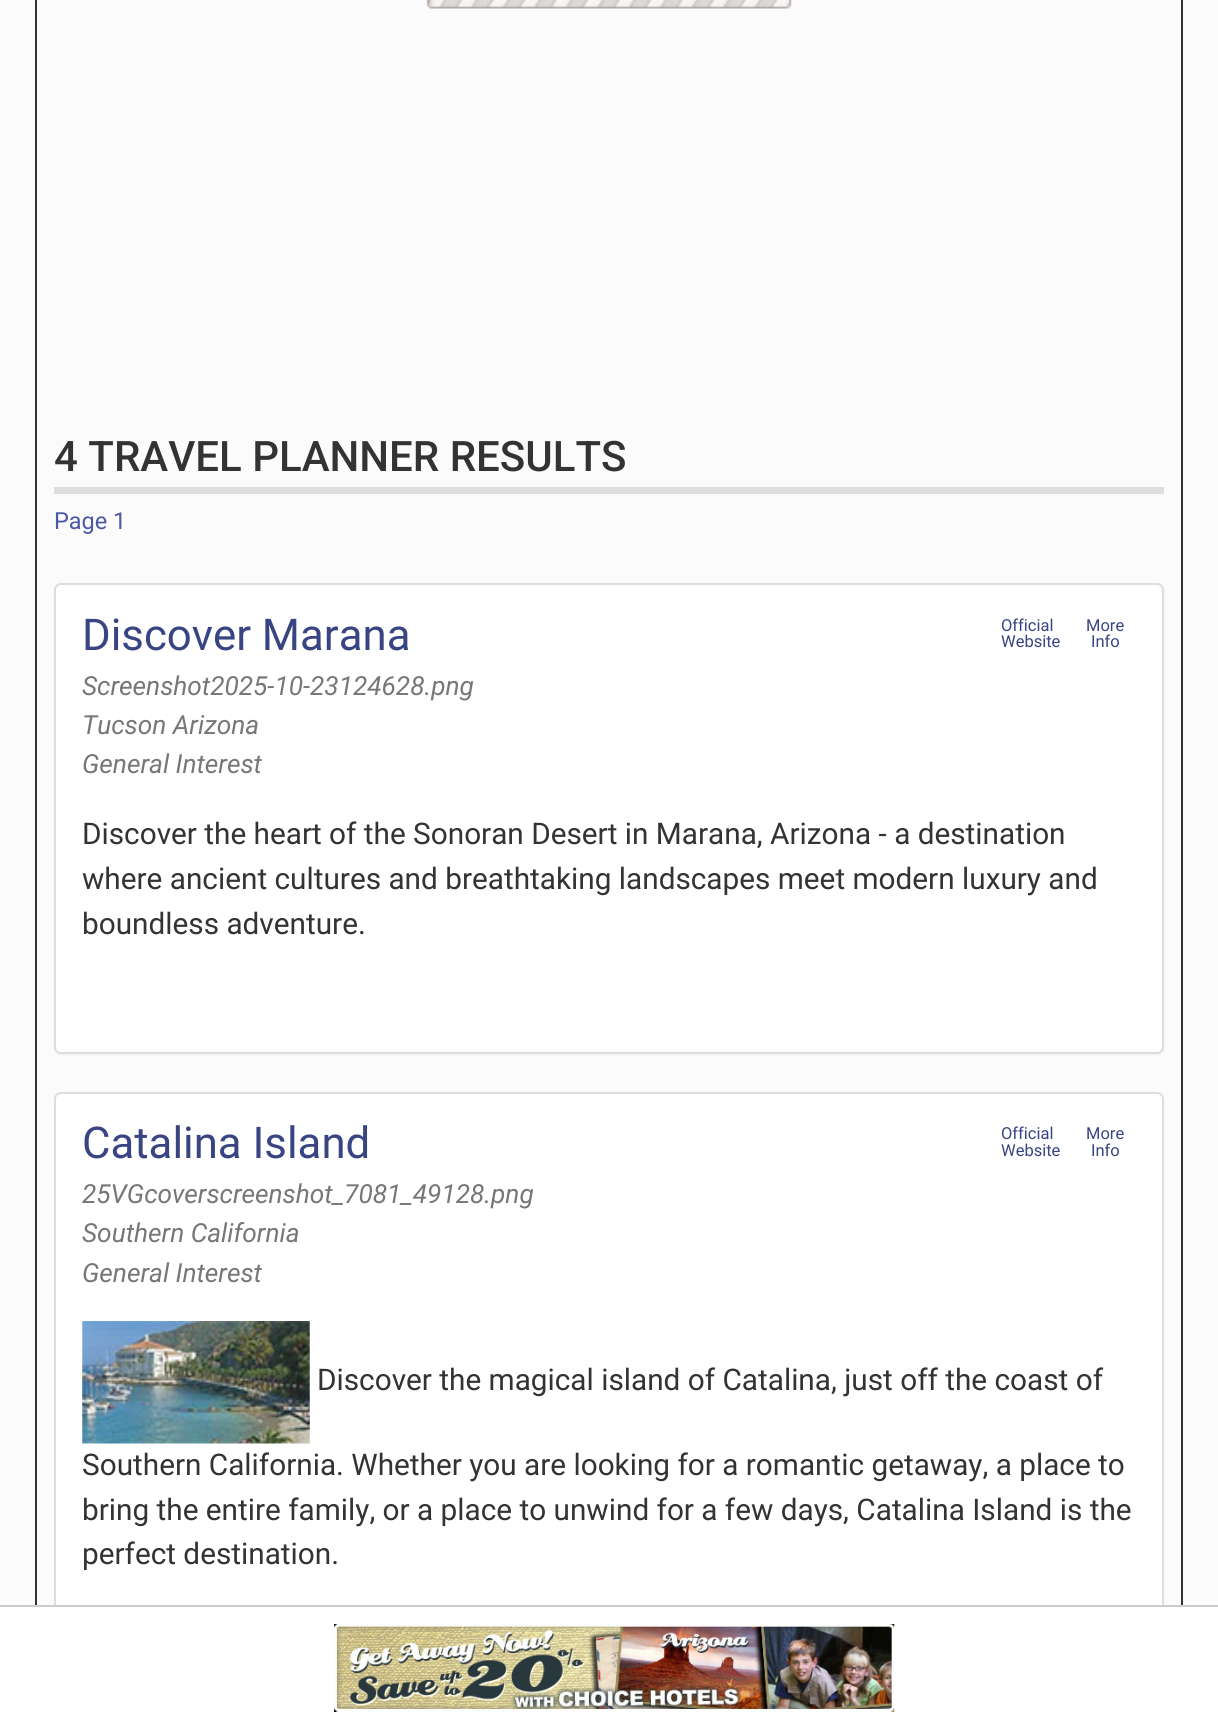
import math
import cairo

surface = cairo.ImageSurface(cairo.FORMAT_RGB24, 1218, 1728)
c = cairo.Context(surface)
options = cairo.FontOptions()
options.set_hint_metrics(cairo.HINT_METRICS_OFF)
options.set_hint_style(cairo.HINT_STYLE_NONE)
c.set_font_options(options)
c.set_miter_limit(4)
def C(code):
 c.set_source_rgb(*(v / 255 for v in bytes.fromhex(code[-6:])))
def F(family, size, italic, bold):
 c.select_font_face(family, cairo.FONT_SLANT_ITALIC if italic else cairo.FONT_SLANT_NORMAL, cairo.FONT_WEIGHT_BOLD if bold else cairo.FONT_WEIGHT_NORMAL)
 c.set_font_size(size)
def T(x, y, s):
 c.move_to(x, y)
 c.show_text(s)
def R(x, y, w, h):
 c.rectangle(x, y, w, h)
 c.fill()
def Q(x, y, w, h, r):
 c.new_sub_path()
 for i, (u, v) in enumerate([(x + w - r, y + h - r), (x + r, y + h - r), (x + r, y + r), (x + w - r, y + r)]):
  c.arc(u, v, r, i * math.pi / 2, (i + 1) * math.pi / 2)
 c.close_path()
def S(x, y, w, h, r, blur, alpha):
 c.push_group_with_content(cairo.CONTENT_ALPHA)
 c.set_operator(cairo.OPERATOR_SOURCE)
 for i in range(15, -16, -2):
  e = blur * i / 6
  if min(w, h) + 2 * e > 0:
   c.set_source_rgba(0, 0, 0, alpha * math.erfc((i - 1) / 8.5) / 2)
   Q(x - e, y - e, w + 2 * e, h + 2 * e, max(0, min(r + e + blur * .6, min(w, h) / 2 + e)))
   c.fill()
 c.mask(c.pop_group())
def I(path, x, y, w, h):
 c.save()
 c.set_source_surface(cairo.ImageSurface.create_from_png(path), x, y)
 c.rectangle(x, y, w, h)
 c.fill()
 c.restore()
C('fbfbfb')
c.paint()
c.rectangle(36,-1,1146,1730)
C('333333')
c.stroke()
I('1.png',426,0,366,9)
C('dededf')
R(54,487,1110,7)
F('Roboto Medium',42,0,0)
C('333333')
T(54,471,'4 TRAVEL PLANNER RESULTS')
F('Roboto',23.5,0,0)
C('4a58a6')
T(54,529,'Page 1')
C('000000')
S(54,585,1110,470,7,1,.05)
C('ffffff')
Q(55,584,1108,469,6)
c.fill_preserve()
C('dddddd')
c.stroke()
F('Roboto',43.75,0,0)
C('394482')
T(82,650,'Discover Marana')
F('Roboto',16.5,0,0)
T(1001,631,'Official')
T(1001,647,'Website')
T(1086,631,'More')
T(1091,647,'Info')
F('Roboto',26.25,1,0)
C('777777')
T(82,695,'Screenshot2025-10-23124628.png')
T(82,734,'Tucson Arizona')
T(82,773,'General Interest')
F('Roboto',29.75,0,0)
C('333333')
T(82,844,'Discover the heart of the Sonoran Desert in Marana, Arizona - a destination')
T(82,889,'where ancient cultures and breathtaking landscapes meet modern luxury and')
T(82,934,'boundless adventure.')
C('ffffff')
Q(55,1093,1108,590,6)
c.fill_preserve()
C('dddddd')
c.stroke()
F('Roboto',43.75,0,0)
C('394482')
T(82,1158,'Catalina Island')
F('Roboto',16.5,0,0)
T(1001,1139,'Official')
T(1001,1156,'Website')
T(1086,1139,'More')
T(1091,1156,'Info')
F('Roboto',26.25,1,0)
C('777777')
T(82,1203,'25VGcoverscreenshot_7081_49128.png')
T(82,1242,'Southern California')
T(82,1282,'General Interest')
I('2.png',82,1321,228,123)
F('Roboto',29.75,0,0)
C('333333')
T(317,1390,'Discover the magical island of Catalina, just off the coast of')
T(82,1475,'Southern California. Whether you are looking for a romantic getaway, a place to')
T(82,1520,'bring the entire family, or a place to unwind for a few days, Catalina Island is the')
T(82,1564,'perfect destination.')
C('ffffff')
R(0,1607,1218,121)
C('cccccc')
R(0,1605,1218,2)
I('3.png',334,1624,561,88)
surface.write_to_png('o.png')
